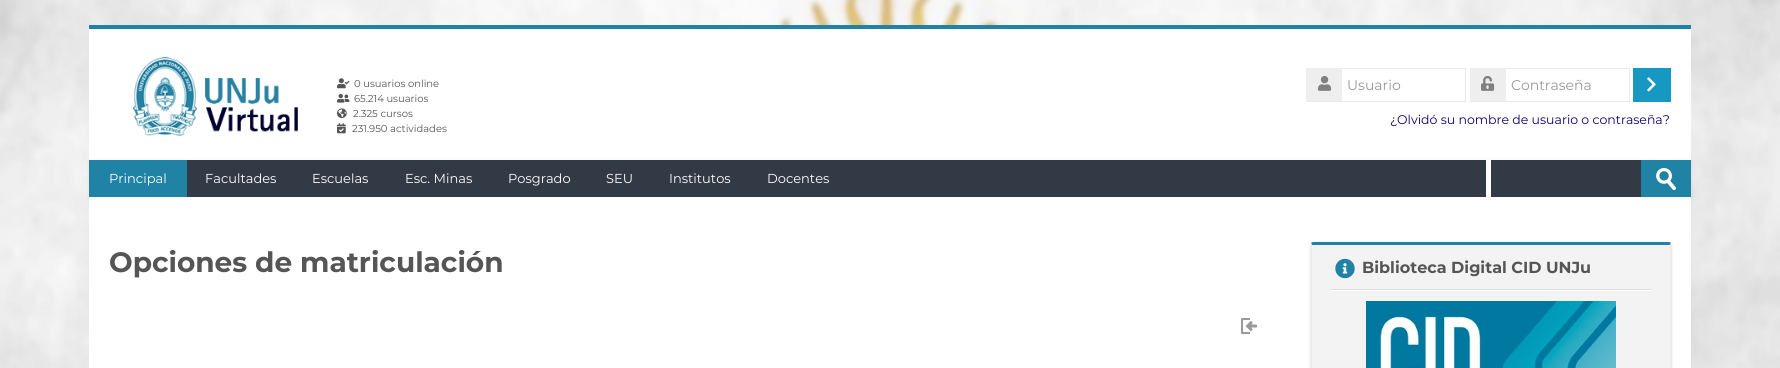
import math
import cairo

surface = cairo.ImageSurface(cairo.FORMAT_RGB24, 1780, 368)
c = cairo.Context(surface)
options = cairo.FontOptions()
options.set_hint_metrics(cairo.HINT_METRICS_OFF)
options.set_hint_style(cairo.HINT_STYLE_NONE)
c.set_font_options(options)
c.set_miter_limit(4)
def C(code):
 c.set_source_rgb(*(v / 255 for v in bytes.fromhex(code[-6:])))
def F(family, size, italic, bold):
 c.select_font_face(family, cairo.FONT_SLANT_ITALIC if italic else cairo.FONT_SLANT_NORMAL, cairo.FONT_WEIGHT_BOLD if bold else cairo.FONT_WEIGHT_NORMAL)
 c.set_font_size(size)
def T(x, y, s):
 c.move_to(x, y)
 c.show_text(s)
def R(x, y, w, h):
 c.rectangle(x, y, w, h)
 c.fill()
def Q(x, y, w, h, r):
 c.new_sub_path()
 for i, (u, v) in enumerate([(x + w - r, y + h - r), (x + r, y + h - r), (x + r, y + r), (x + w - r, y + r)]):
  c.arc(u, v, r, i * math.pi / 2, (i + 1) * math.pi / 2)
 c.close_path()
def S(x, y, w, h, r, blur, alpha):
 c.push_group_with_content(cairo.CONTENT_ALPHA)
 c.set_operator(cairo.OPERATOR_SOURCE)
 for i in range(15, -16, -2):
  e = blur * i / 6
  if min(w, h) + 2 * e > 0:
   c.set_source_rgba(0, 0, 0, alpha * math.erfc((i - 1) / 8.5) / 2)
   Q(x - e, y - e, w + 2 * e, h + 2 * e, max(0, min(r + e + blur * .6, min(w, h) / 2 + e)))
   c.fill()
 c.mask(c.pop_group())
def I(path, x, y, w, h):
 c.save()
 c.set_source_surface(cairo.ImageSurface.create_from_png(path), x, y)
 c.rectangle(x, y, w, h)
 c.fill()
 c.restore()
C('ffffff')
c.paint()
I('1.png',0,0,1780,368)
C('2082a5')
R(89,25,1602,4)
C('ffffff')
R(89,29,1602,131)
I('2.png',133,57,165,79)
I('3.png',337,78,13,11)
F('Montserrat',10,0,0)
C('555555')
T(354,87,'0 usuarios online')
I('4.png',337,93,13,10)
T(354,102,'65.214 usuarios')
I('5.png',337,108,10,11)
T(353,117,'2.325 cursos')
I('6.png',337,123,9,11)
T(352,132,'231.950 actividades')
c.rectangle(1306.5,68.5,159,33)
C('e9e9e9')
c.set_line_width(1)
c.stroke()
C('eeeeee')
R(1306,68,36,33)
I('7.png',1318,76,14,15)
F('Montserrat',14,0,0)
C('999999')
T(1347,90,'Usuario')
c.rectangle(1470.5,68.5,159,33)
C('e9e9e9')
c.stroke()
C('eeeeee')
R(1470,68,36,33)
I('8.png',1481,75,14,16)
C('999999')
T(1511,90,'Contraseña')
C('1798c2')
R(1633,68,38,34)
I('9.png',1647,77,9,15)
F('Montserrat',12.5,0,0)
C('0d006e')
T(1390,124,'¿Olvidó su nombre de usuario o contraseña?')
C('000000')
S(89,161,1602,37,0,2,.07)
C('323a45')
R(187,160,1454,37)
C('2082a5')
R(89,160,98,37)
F('Montserrat',13,0,0)
C('ffffff')
T(109,183,'Principal')
T(205,183,'Facultades')
T(312,183,'Escuelas')
T(405,183,'Esc. Minas')
T(508,183,'Posgrado')
T(606,183,'SEU')
T(669,183,'Institutos')
T(767,183,'Docentes')
R(1486,160,5,37)
C('2082a5')
R(1641,160,50,37)
I('10.png',1656,168,20,22)
C('ffffff')
R(89,197,1602,171)
F('Montserrat',28,0,1)
C('555555')
T(109,272,'Opciones de matriculación')
I('11.png',1241,318,16,16)
C('000000')
S(1311,243,360,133,3,1.5,.2)
C('f3f3f3')
c.new_path()
c.move_to(1314,245)
c.line_to(1670,245)
c.line_to(1670,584)
c.curve_to(1670,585,1669,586,1668,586)
c.line_to(1314,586)
c.curve_to(1313,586,1312,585,1312,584)
c.line_to(1312,245)
c.close_path()
c.fill()
C('2082a5')
c.new_path()
c.move_to(1314,242)
c.curve_to(1313,242,1312,242,1311,243)
c.line_to(1312,245)
c.line_to(1670,245)
c.line_to(1671,243)
c.curve_to(1670,242,1669,242,1668,242)
c.close_path()
c.fill()
C('ebebeb')
c.new_path()
c.move_to(1671,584)
c.line_to(1671,245)
c.line_to(1671,243)
c.line_to(1670,245)
c.line_to(1670,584)
c.line_to(1669,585)
c.line_to(1670,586)
c.close_path()
c.fill()
c.new_path()
c.move_to(1311,245)
c.line_to(1311,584)
c.line_to(1312,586)
c.line_to(1313,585)
c.line_to(1312,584)
c.line_to(1312,245)
c.line_to(1311,243)
c.close_path()
c.fill()
I('12.png',1331,289,320,2)
I('13.png',1335,258,20,21)
F('Montserrat',16,0,1)
C('555555')
T(1362,273,'Biblioteca Digital CID UNJu')
I('14.png',1366,301,250,67)
surface.write_to_png('o.png')
